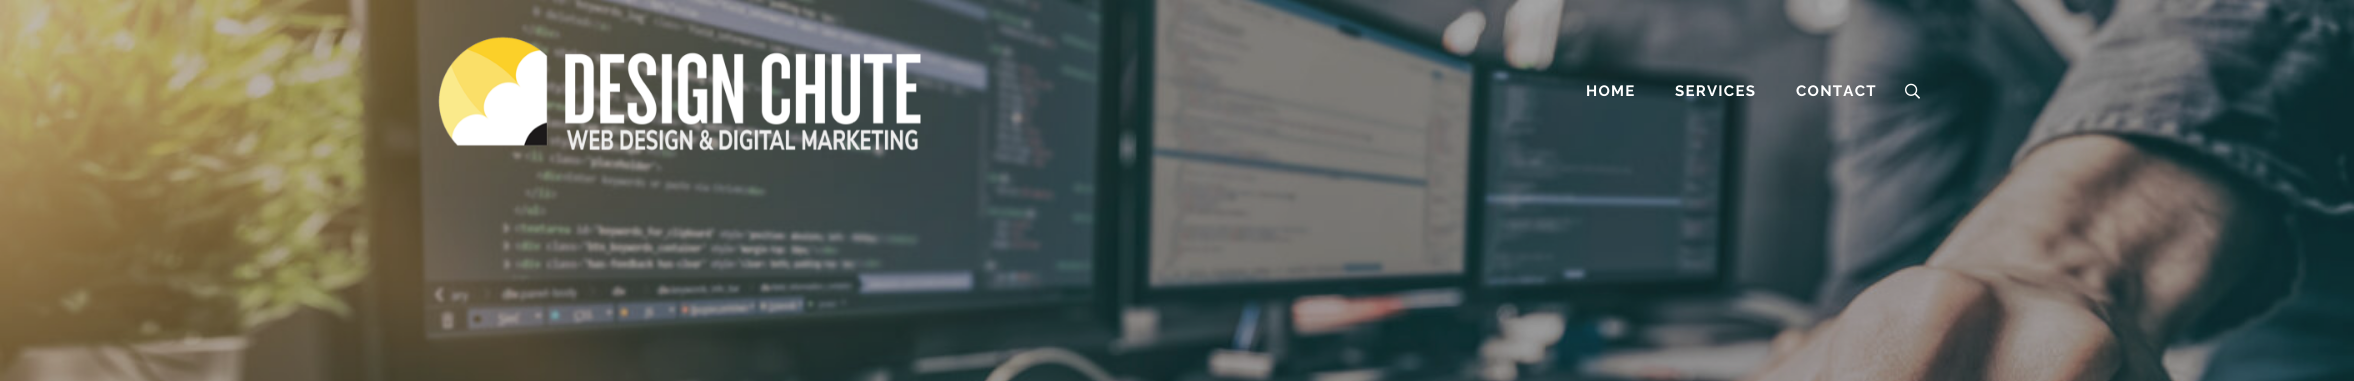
import math
import cairo

surface = cairo.ImageSurface(cairo.FORMAT_RGB24, 2354, 381)
c = cairo.Context(surface)
options = cairo.FontOptions()
options.set_hint_metrics(cairo.HINT_METRICS_OFF)
options.set_hint_style(cairo.HINT_STYLE_NONE)
c.set_font_options(options)
c.set_miter_limit(4)
def C(code):
 c.set_source_rgb(*(v / 255 for v in bytes.fromhex(code[-6:])))
def F(family, size, italic, bold):
 c.select_font_face(family, cairo.FONT_SLANT_ITALIC if italic else cairo.FONT_SLANT_NORMAL, cairo.FONT_WEIGHT_BOLD if bold else cairo.FONT_WEIGHT_NORMAL)
 c.set_font_size(size)
def L(x, y, s, letter, word):
 c.move_to(x, y)
 for ch in s:
  c.show_text(ch)
  c.rel_move_to(letter + word * (ch == ' '), 0)
def I(path, x, y, w, h):
 c.save()
 c.set_source_surface(cairo.ImageSurface.create_from_png(path), x, y)
 c.rectangle(x, y, w, h)
 c.fill()
 c.restore()
C('ffffff')
c.paint()
I('1.png',0,0,2354,381)
I('2.png',438,36,483,115)
F('Raleway',15,0,1)
C('ffffff')
L(1586,96,'HOME',1.25,0)
L(1675,96,'SERVICES',1.25,0)
L(1796,96,'CONTACT',1.25,0)
I('3.png',1905,83,15,16)
surface.write_to_png('o.png')
